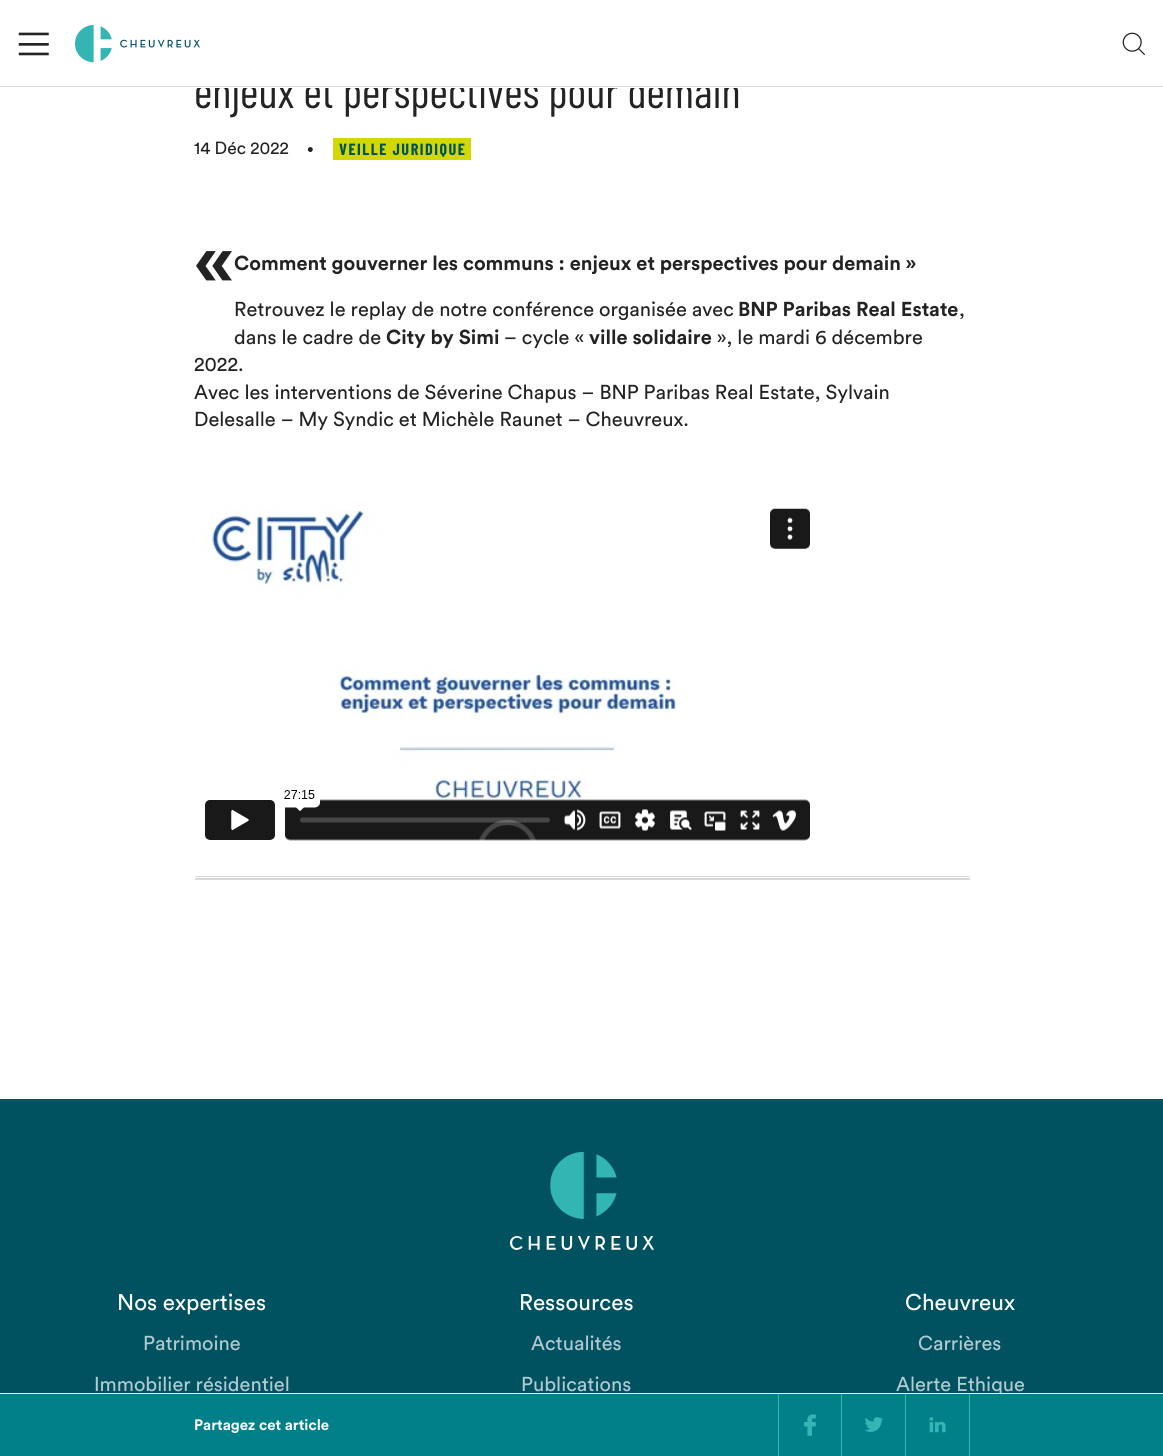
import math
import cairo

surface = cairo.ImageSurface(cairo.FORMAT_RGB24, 1163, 1456)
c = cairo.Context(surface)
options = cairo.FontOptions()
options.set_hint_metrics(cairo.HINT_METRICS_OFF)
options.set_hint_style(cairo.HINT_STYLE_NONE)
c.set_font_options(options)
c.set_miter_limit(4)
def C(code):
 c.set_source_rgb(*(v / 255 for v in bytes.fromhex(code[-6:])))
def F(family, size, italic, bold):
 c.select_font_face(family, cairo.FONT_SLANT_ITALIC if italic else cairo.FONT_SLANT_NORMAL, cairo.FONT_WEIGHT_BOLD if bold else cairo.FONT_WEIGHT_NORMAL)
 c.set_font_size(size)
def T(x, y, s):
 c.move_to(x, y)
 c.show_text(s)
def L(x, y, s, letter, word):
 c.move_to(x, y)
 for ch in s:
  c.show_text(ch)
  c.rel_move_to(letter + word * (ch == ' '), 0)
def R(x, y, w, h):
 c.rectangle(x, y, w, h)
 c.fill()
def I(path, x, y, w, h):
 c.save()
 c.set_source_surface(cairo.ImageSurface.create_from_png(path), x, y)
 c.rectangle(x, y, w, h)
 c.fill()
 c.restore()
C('ffffff')
c.paint()
F('Barlow Condensed',45,0,0)
C('232323')
T(194,108,'enjeux et perspectives pour demain')
C('ffffff')
R(197,76,541,12)
C('d9d9d9')
R(0,86,1163,1)
I('1.png',18,32,31,24)
I('2.png',75,25,125,38)
I('3.png',1122,32,23,23)
F('Circular',17.5,0,0)
C('232323')
T(194,154,'14 Déc 2022')
F('Circular',12,0,0)
T(307,153,'•')
C('d3d801')
R(333,138,138,22)
F('Barlow Condensed',16.25,0,1)
C('005261')
L(339,155,'VEILLE JURIDIQUE',1.5,0)
F('Circular',75,0,1)
C('232323')
T(194,288,'«')
F('Circular',20,0,1)
T(234,270,'Comment gouverner les communs : enjeux et perspectives pour demain »')
F('Circular',20,0,0)
T(234,316,'Retrouvez le replay de notre conférence organisée avec')
F('Circular',20,0,1)
T(738,316,'BNP Paribas Real Estate')
F('Circular',20,0,0)
T(959,316,',')
T(234,344,'dans le cadre de')
F('Circular',20,0,1)
T(386,344,'City by Simi')
F('Circular',20,0,0)
T(504,344,'– cycle «')
F('Circular',20,0,1)
T(589,344,'ville solidaire')
F('Circular',20,0,0)
T(717,344,'», le mardi 6 décembre')
T(194,371,'2022.')
T(194,399,'Avec les interventions de Séverine Chapus – BNP Paribas Real Estate, Sylvain')
T(194,426,'Delesalle – My Syndic et Michèle Raunet – Cheuvreux.')
I('4.png',205,508,605,333)
C('d9d9d9')
R(195,876,775,1)
R(195,878,775,2)
C('005261')
R(0,1099,1163,294)
I('5.png',510,1152,144,98)
F('Circular',22.5,0,0)
C('ffffff')
T(117,1310,'Nos expertises')
F('Circular',20,0,0)
C('b3cbd0')
T(143,1350,'Patrimoine')
T(94,1391,'Immobilier résidentiel')
F('Circular',22.5,0,0)
C('ffffff')
T(519,1310,'Ressources')
F('Circular',20,0,0)
C('b3cbd0')
T(531,1350,'Actualités')
T(521,1391,'Publications')
F('Circular',22.5,0,0)
C('ffffff')
T(905,1310,'Cheuvreux')
F('Circular',20,0,0)
C('b3cbd0')
T(918,1350,'Carrières')
T(896,1391,'Alerte Ethique')
C('01808a')
R(0,1394,1163,62)
C('ffffff')
R(999,1393,2,1)
F('Circular',15,0,1)
T(194,1430,'Partagez cet article')
C('35b5b4')
R(778,1394,1,62)
I('6.png',804,1414,12,22)
R(841,1394,1,62)
I('7.png',865,1417,18,15)
R(969,1394,1,62)
R(905,1394,1,62)
I('8.png',929,1417,17,16)
surface.write_to_png('o.png')
